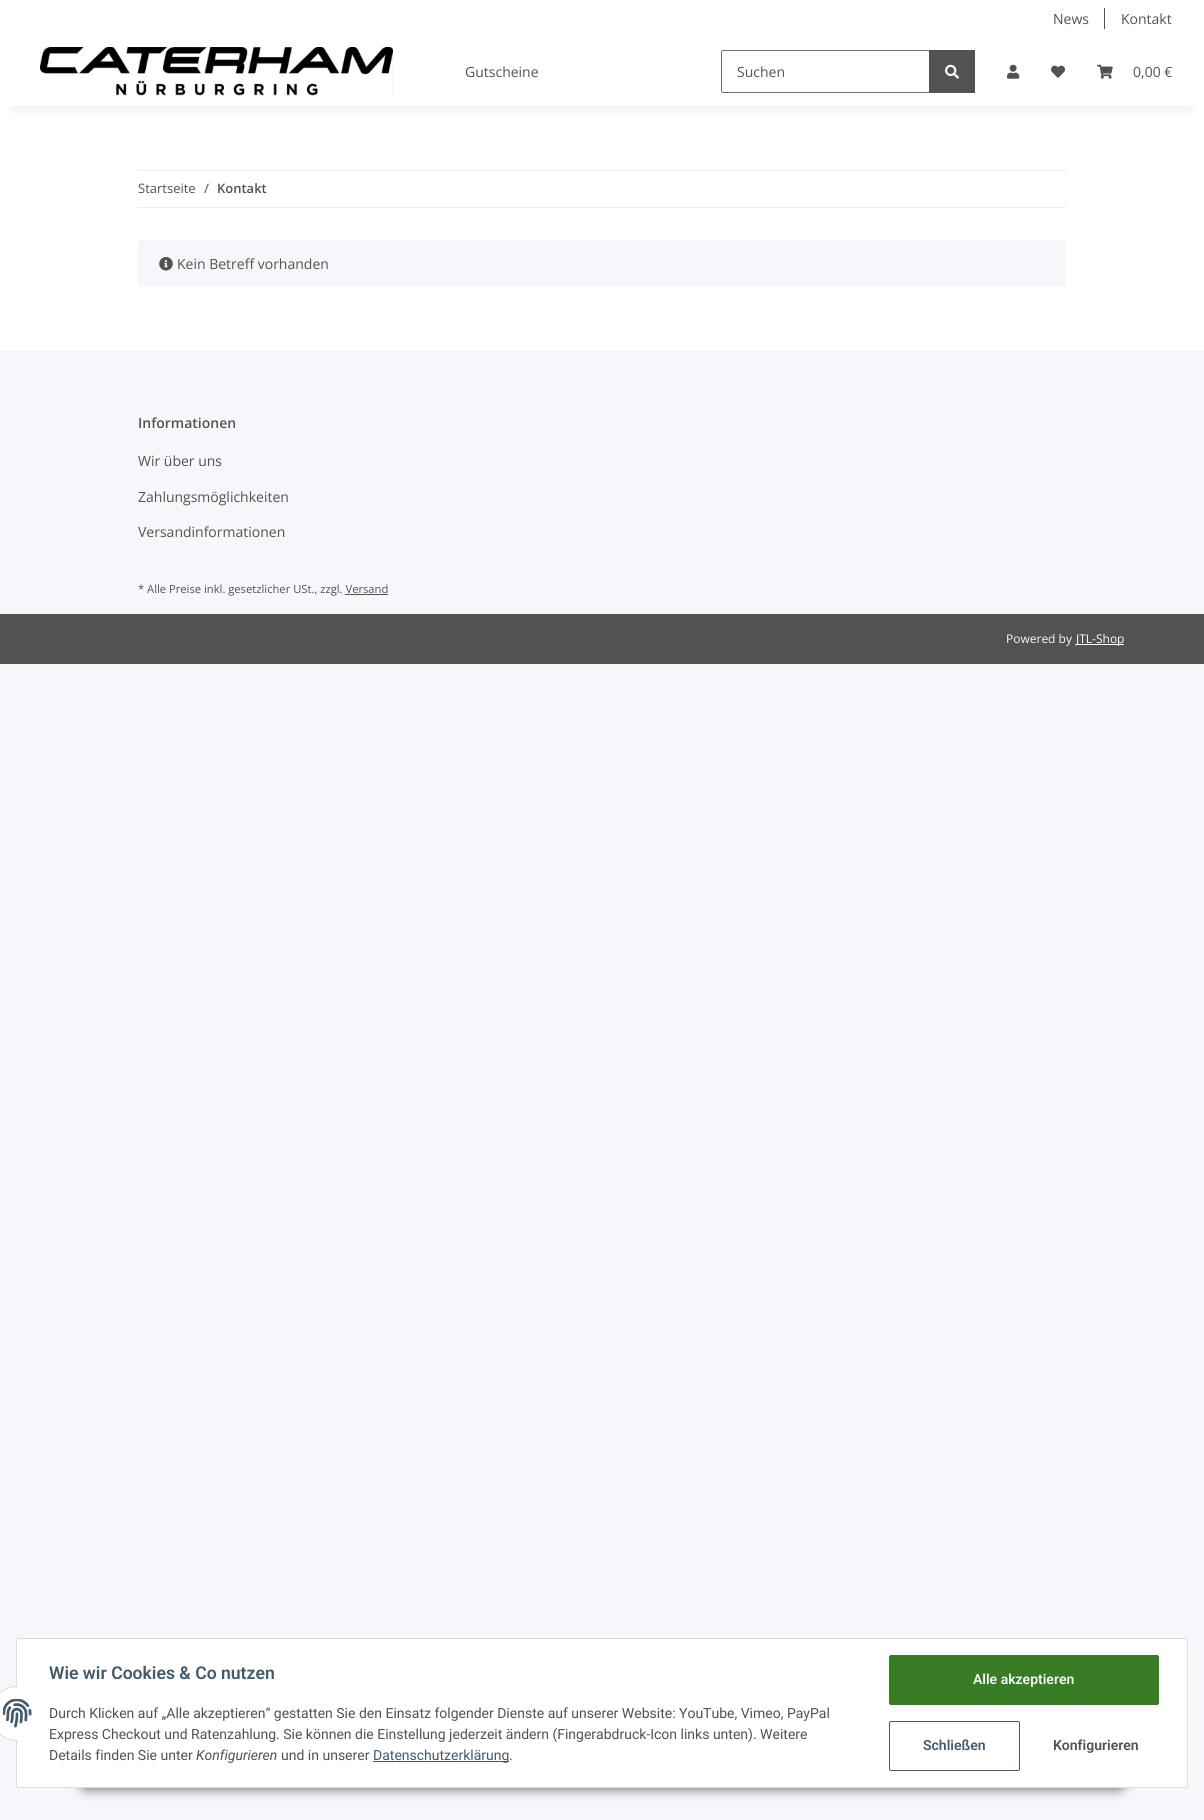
import math
import cairo

surface = cairo.ImageSurface(cairo.FORMAT_RGB24, 1204, 1820)
c = cairo.Context(surface)
options = cairo.FontOptions()
options.set_hint_metrics(cairo.HINT_METRICS_OFF)
options.set_hint_style(cairo.HINT_STYLE_NONE)
c.set_font_options(options)
c.set_miter_limit(4)
def C(code):
 c.set_source_rgb(*(v / 255 for v in bytes.fromhex(code[-6:])))
def F(family, size, italic, bold):
 c.select_font_face(family, cairo.FONT_SLANT_ITALIC if italic else cairo.FONT_SLANT_NORMAL, cairo.FONT_WEIGHT_BOLD if bold else cairo.FONT_WEIGHT_NORMAL)
 c.set_font_size(size)
def T(x, y, s):
 c.move_to(x, y)
 c.show_text(s)
def R(x, y, w, h):
 c.rectangle(x, y, w, h)
 c.fill()
def Q(x, y, w, h, r):
 c.new_sub_path()
 for i, (u, v) in enumerate([(x + w - r, y + h - r), (x + r, y + h - r), (x + r, y + r), (x + w - r, y + r)]):
  c.arc(u, v, r, i * math.pi / 2, (i + 1) * math.pi / 2)
 c.close_path()
def S(x, y, w, h, r, blur, alpha):
 c.push_group_with_content(cairo.CONTENT_ALPHA)
 c.set_operator(cairo.OPERATOR_SOURCE)
 for i in range(15, -16, -2):
  e = blur * i / 6
  if min(w, h) + 2 * e > 0:
   c.set_source_rgba(0, 0, 0, alpha * math.erfc((i - 1) / 8.5) / 2)
   Q(x - e, y - e, w + 2 * e, h + 2 * e, max(0, min(r + e + blur * .6, min(w, h) / 2 + e)))
   c.fill()
 c.mask(c.pop_group())
def I(path, x, y, w, h):
 c.save()
 c.set_source_surface(cairo.ImageSurface.create_from_png(path), x, y)
 c.rectangle(x, y, w, h)
 c.fill()
 c.restore()
C('f5f7fa')
c.paint()
C('ffffff')
R(0,106,1204,245)
C('000000')
S(12,65,1180,45,0,4.5,.06)
C('ffffff')
R(0,0,1204,106)
F('Open Sans',14,0,0)
C('525252')
T(1053,24,'News')
R(1104,8,1,21)
T(1121,24,'Kontakt')
I('1.png',40,47,353,49)
T(465,77,'Gutscheine')
Q(721.5,50.5,208,42,1.5)
C('707070')
c.set_line_width(1)
c.stroke()
C('525252')
T(737,77,'Suchen')
R(929,50,46,43)
I('2.png',945,64,14,15)
I('3.png',1007,64,13,15)
I('4.png',1051,65,14,13)
I('5.png',1097,64,16,15)
T(1133,77,'0,00 €')
C('ebebeb')
R(138,170,928,1)
R(138,207,928,1)
F('Open Sans',13,0,0)
C('525252')
T(138,193,'Startseite')
F('Open Sans SemiBold',13,0,0)
C('707070')
T(204,193,'/')
C('525252')
T(217,193,'Kontakt')
C('f5f7fa')
Q(138,240,928,47,2)
c.fill()
I('6.png',159,257,14,14)
F('Open Sans',14,0,0)
C('525252')
T(177,269,'Kein Betreff vorhanden')
F('Open Sans SemiBold',14,0,0)
T(138,428,'Informationen')
F('Open Sans',14,0,0)
T(138,466,'Wir über uns')
T(138,502,'Zahlungsmöglichkeiten')
T(138,537,'Versandinformationen')
F('Open Sans',11.2,0,0)
T(138,593,'* Alle Preise inkl. gesetzlicher USt., zzgl. Versand')
R(345,594,43,1)
R(0,614,1204,50)
F('Open Sans',12,0,0)
C('f5f7fa')
T(1006,643,'Powered by')
C('ffffff')
R(1076,644,48,1)
T(1076,643,'JTL-Shop')
C('000000')
S(76,1759,1053,32,16,5,.45)
C('ffffff')
Q(16.5,1638.5,1171,149,1.5)
c.fill_preserve()
C('dddddd')
c.stroke()
C('ffffff')
c.arc(17.5,1713.5,27,0,2 * math.pi)
c.fill_preserve()
C('dddddd')
c.stroke()
C('ffffff')
R(18,1686,27,55)
I('7.png',3,1699,29,29)
F('Roboto SemiBold',17.6,0,0)
C('435a6b')
T(49,1679,'Wie wir Cookies & Co nutzen')
F('Roboto',14,0,0)
C('525252')
T(49,1718,'Durch Klicken auf „Alle akzeptieren“ gestatten Sie den Einsatz folgender Dienste auf unserer Website: YouTube, Vimeo, PayPal')
T(49,1739,'Express Checkout und Ratenzahlung. Sie können die Einstellung jederzeit ändern (Fingerabdruck-Icon links unten). Weitere')
T(49,1760,'Details finden Sie unter')
F('Roboto',14,1,0)
T(196,1760,'Konfigurieren')
F('Roboto',14,0,0)
T(281,1760,'und in unserer')
C('435a6b')
R(373,1761,136,1)
T(373,1760,'Datenschutzerklärung')
C('525252')
T(509,1760,'.')
C('397c26')
Q(889.5,1655.5,269,49,1.5)
c.fill_preserve()
c.stroke()
F('Roboto SemiBold',14,0,0)
C('f5f7fa')
T(973,1684,'Alle akzeptieren')
Q(889.5,1721.5,130,49,1.5)
C('435a6b')
c.stroke()
T(923,1750,'Schließen')
C('525252')
T(1053,1750,'Konfigurieren')
surface.write_to_png('o.png')
